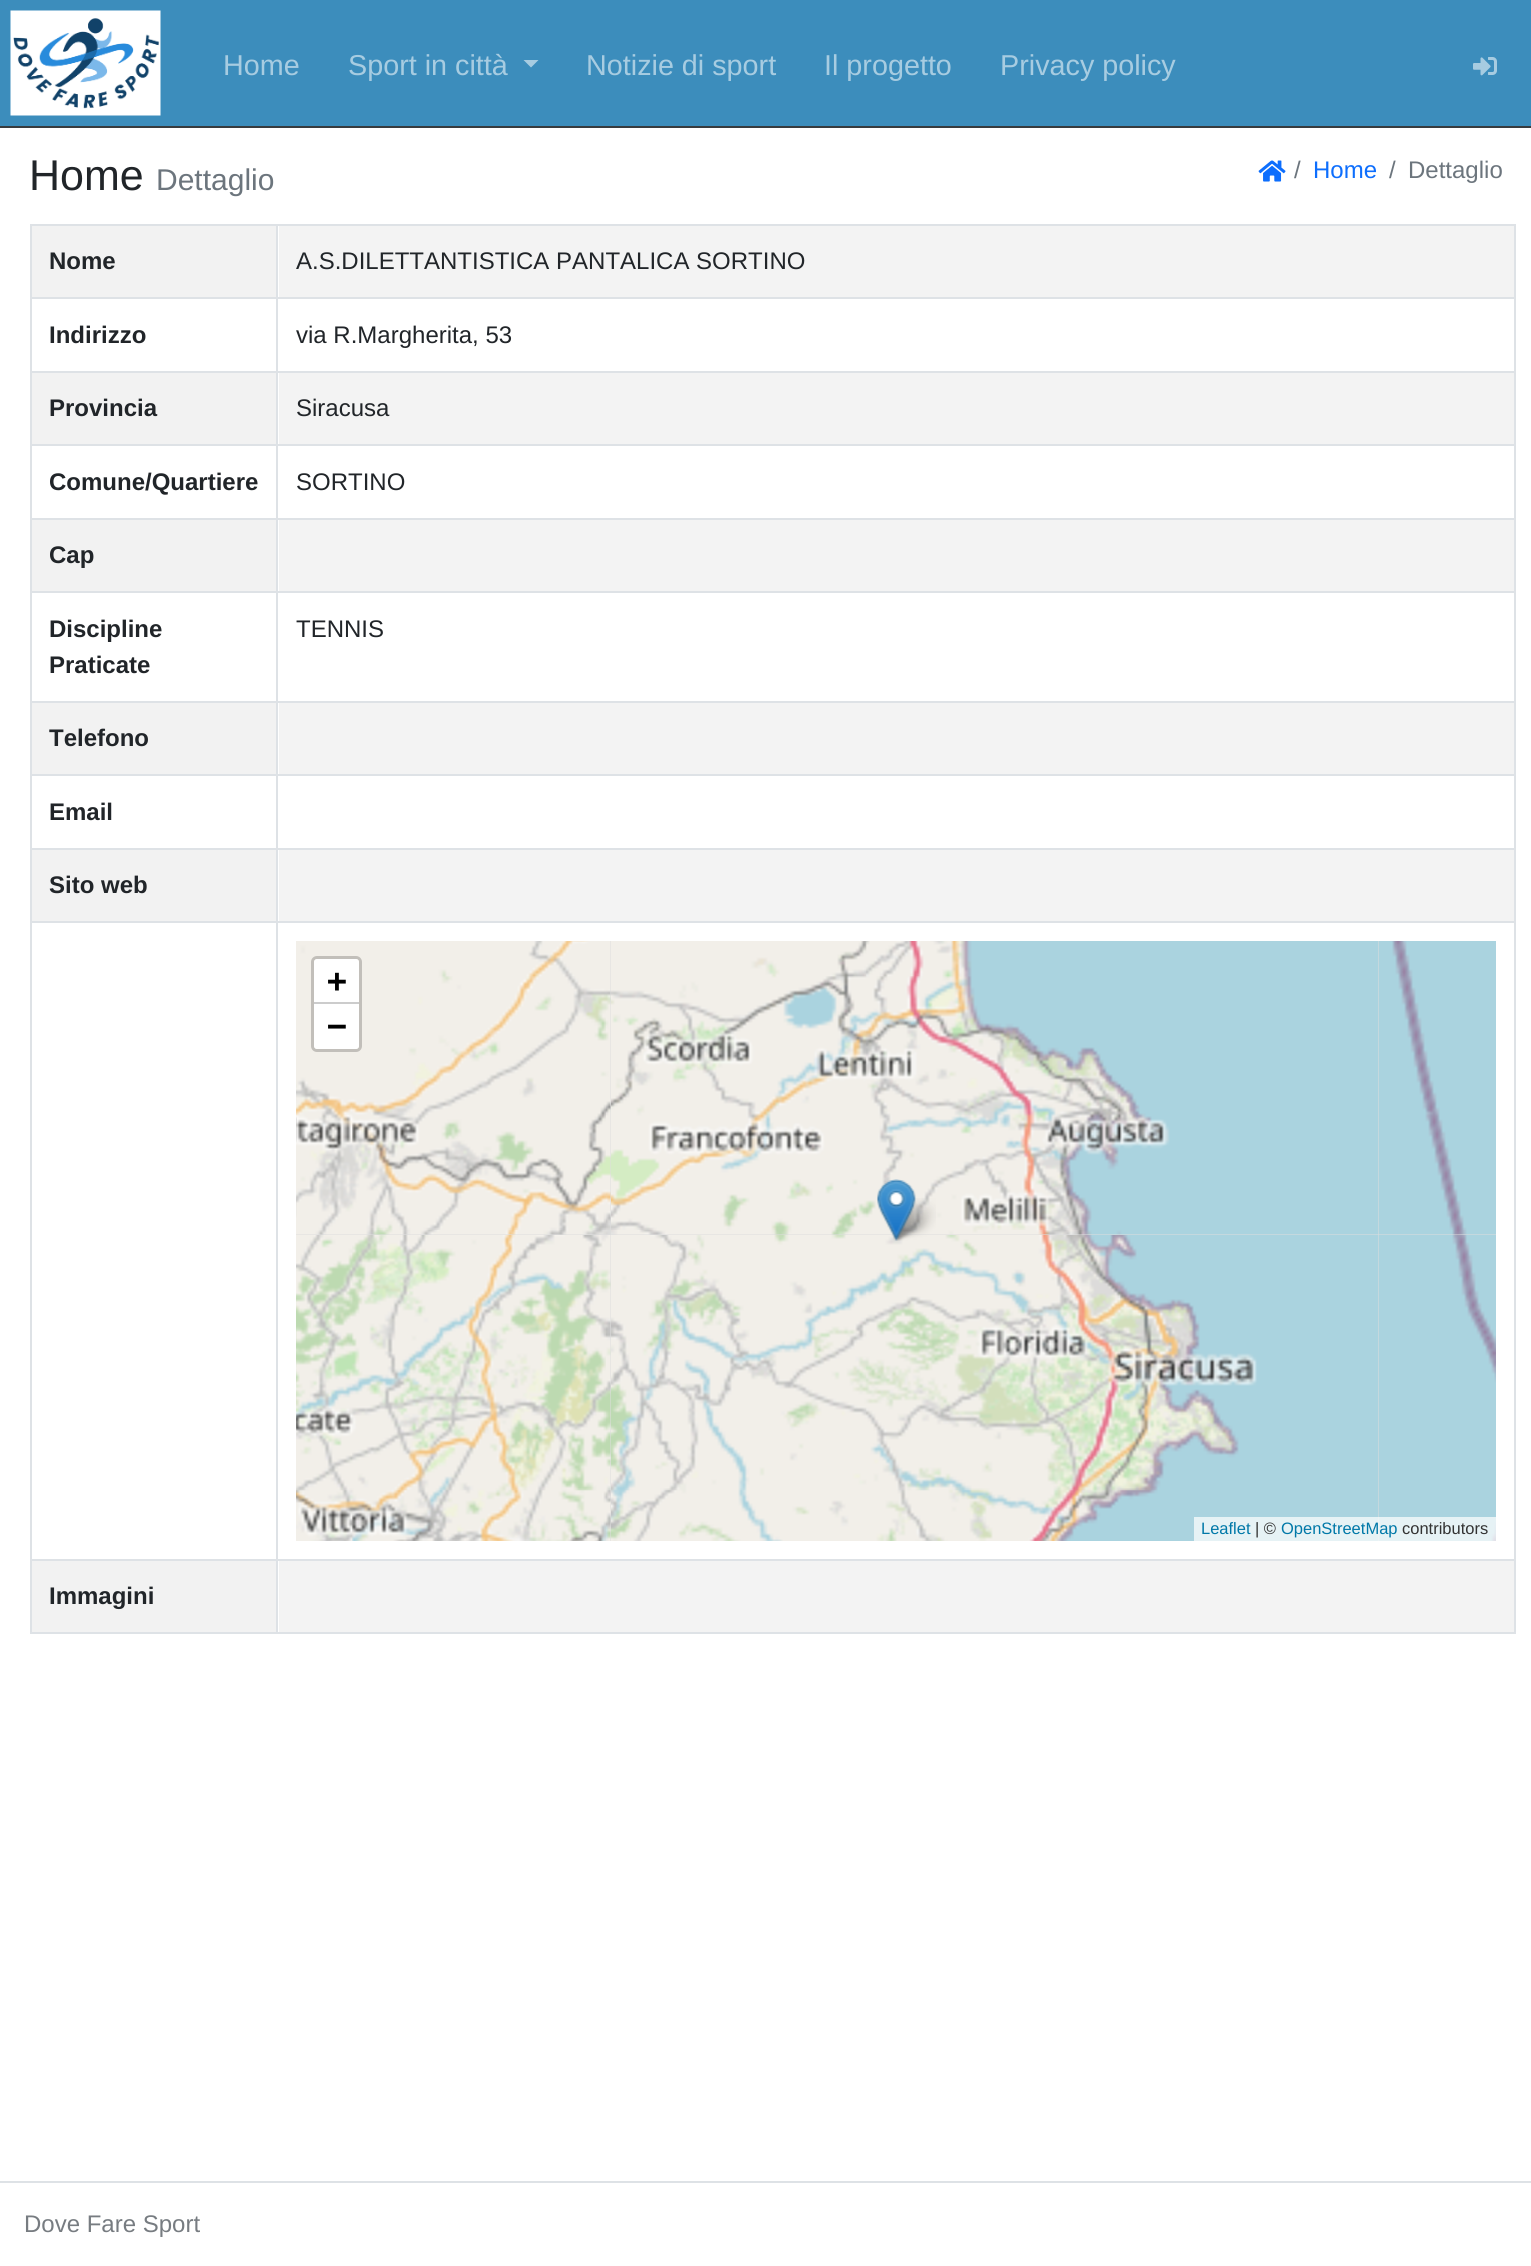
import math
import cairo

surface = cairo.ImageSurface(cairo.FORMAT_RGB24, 1531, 2266)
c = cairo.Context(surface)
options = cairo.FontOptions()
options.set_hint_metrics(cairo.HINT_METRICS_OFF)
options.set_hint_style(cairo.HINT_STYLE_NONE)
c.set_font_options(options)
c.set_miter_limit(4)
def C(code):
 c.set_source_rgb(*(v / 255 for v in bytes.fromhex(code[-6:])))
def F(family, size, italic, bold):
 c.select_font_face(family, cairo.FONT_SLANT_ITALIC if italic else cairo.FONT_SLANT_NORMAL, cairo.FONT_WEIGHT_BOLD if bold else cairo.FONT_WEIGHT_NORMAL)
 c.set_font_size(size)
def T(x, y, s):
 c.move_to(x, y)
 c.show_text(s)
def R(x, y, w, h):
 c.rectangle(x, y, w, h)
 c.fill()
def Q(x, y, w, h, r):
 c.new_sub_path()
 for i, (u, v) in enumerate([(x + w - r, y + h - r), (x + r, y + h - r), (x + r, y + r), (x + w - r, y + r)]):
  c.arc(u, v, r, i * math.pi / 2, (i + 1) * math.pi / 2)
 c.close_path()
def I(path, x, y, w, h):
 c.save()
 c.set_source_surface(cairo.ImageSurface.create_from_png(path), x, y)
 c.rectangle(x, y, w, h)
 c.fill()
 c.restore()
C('ffffff')
c.paint()
C('3c8dbc')
R(0,0,1531,126)
C('373b3e')
R(0,126,1531,2)
I('1.png',10,10,151,106)
F('Liberation Sans',28.75,0,0)
C('a7cce1')
T(223,75,'Home')
T(348,75,'Sport in città')
c.new_path()
c.move_to(523.5,60)
c.line_to(538.5,60)
c.line_to(531,67.5)
c.close_path()
c.fill()
T(586,75,'Notizie di sport')
T(824,75,'Il progetto')
T(1000,75,'Privacy policy')
I('2.png',1473,57,24,19)
F('Liberation Sans',43,0,0)
C('212529')
T(29,190,'Home')
F('Liberation Sans',30,0,0)
C('6c757d')
T(156,190,'Dettaglio')
I('3.png',1258,160,28,22)
F('Liberation Sans',24,0,0)
T(1294,178,'/')
C('0d6efd')
T(1313,178,'Home')
C('6c757d')
T(1389,178,'/')
T(1408,178,'Dettaglio')
C('dee2e6')
R(30,224,1485,2)
C('f2f2f2')
R(32,226,244,71)
F('Liberation Sans',24,0,1)
C('212529')
T(49,269,'Nome')
C('f3f3f3')
R(279,226,1235,71)
F('Liberation Sans',24,0,0)
C('212529')
T(296,269,'A.S.DILETTANTISTICA PANTALICA SORTINO')
C('dee2e6')
R(30,297,1485,2)
F('Liberation Sans',24,0,1)
C('212529')
T(49,343,'Indirizzo')
F('Liberation Sans',24,0,0)
T(296,343,'via R.Margherita, 53')
C('dee2e6')
R(30,371,1485,2)
C('f2f2f2')
R(32,373,244,71)
F('Liberation Sans',24,0,1)
C('212529')
T(49,416,'Provincia')
C('f3f3f3')
R(279,373,1235,71)
F('Liberation Sans',24,0,0)
C('212529')
T(296,416,'Siracusa')
C('dee2e6')
R(30,444,1485,2)
F('Liberation Sans',24,0,1)
C('212529')
T(49,490,'Comune/Quartiere')
F('Liberation Sans',24,0,0)
T(296,490,'SORTINO')
C('dee2e6')
R(30,518,1485,2)
C('f2f2f2')
R(32,520,244,71)
F('Liberation Sans',24,0,1)
C('212529')
T(49,563,'Cap')
C('f3f3f3')
R(279,520,1235,71)
C('dee2e6')
R(30,591,1485,2)
C('212529')
T(49,637,'Discipline')
T(49,673,'Praticate')
F('Liberation Sans',24,0,0)
T(296,637,'TENNIS')
C('dee2e6')
R(30,701,1485,2)
C('f2f2f2')
R(32,703,244,71)
F('Liberation Sans',24,0,1)
C('212529')
T(49,746,'Telefono')
C('f3f3f3')
R(279,703,1235,71)
C('dee2e6')
R(30,774,1485,2)
C('212529')
T(49,820,'Email')
C('dee2e6')
R(30,848,1485,2)
C('f2f2f2')
R(32,850,244,71)
C('212529')
T(49,893,'Sito web')
C('f3f3f3')
R(279,850,1235,71)
C('dee2e6')
R(30,921,1485,2)
C('dddddd')
R(296,941,1200,600)
I('4.png',296,941,315,294)
I('5.png',611,941,768,294)
I('6.png',1379,941,117,294)
I('7.png',296,1235,315,306)
I('8.png',611,1235,768,306)
I('9.png',1379,1235,117,306)
I('11.png',891,1198,45,43)
I('10.png',877,1179,39,62)
Q(312.5,957.5,48,93,4.5)
C('c2bfba')
c.set_line_width(3)
c.stroke()
C('ffffff')
c.new_path()
c.move_to(317,959)
c.line_to(356,959)
c.curve_to(357.5,959,359,960.5,359,962)
c.line_to(359,1004)
c.line_to(314,1004)
c.line_to(314,962)
c.curve_to(314,960.5,315.5,959,317,959)
c.close_path()
c.fill()
C('cccccc')
R(314,1002,45,2)
F('DejaVu Sans Mono',33,0,1)
C('000000')
T(327,992,'+')
C('ffffff')
c.new_path()
c.move_to(314,1004)
c.line_to(359,1004)
c.line_to(359,1046)
c.curve_to(359,1047.5,357.5,1049,356,1049)
c.line_to(317,1049)
c.curve_to(315.5,1049,314,1047.5,314,1046)
c.close_path()
c.fill()
C('000000')
T(327,1037,'−')
c.set_source_rgba(1,1,1,0.7)
R(1194,1517,302,24)
F('Liberation Sans',16.5,0,0)
C('0078a8')
T(1201,1534,'Leaflet')
C('333333')
T(1255,1534,'| ©')
C('0078a8')
T(1281,1534,'OpenStreetMap')
C('333333')
T(1402,1534,'contributors')
C('dee2e6')
R(30,1559,1485,2)
R(30,1632,1485,2)
C('f2f2f2')
R(32,1561,244,71)
C('dee2e6')
R(30,224,2,1410)
F('Liberation Sans',24,0,1)
C('212529')
T(49,1604,'Immagini')
C('f3f3f3')
R(279,1561,1235,71)
C('dee2e6')
R(1514,224,2,1410)
R(276,224,2,1410)
R(0,2181,1531,2)
F('Liberation Sans',24,0,0)
C('777c81')
T(24,2232,'Dove Fare Sport')
surface.write_to_png('o.png')
